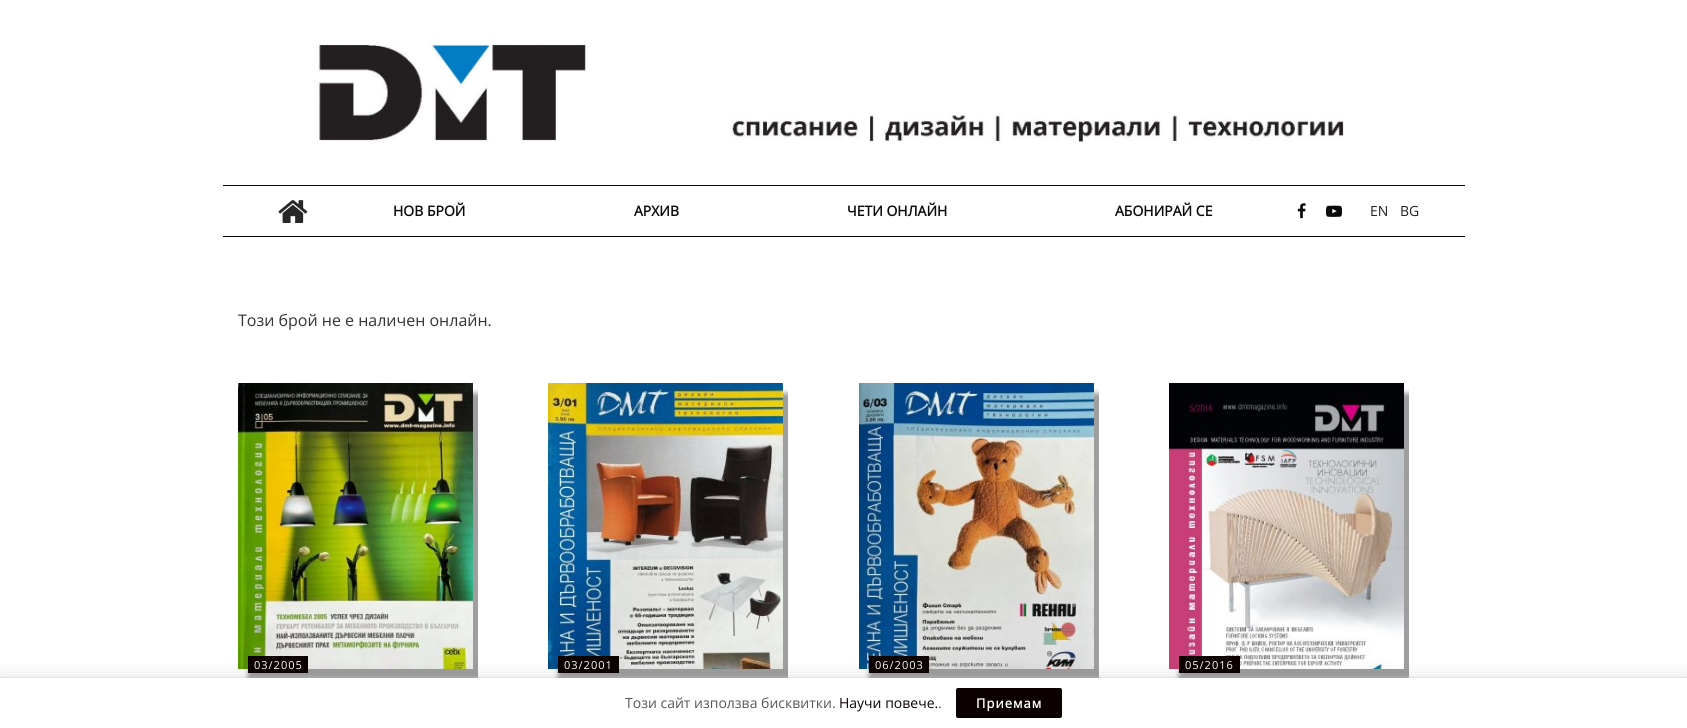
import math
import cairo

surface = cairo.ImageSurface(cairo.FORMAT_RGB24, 1687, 728)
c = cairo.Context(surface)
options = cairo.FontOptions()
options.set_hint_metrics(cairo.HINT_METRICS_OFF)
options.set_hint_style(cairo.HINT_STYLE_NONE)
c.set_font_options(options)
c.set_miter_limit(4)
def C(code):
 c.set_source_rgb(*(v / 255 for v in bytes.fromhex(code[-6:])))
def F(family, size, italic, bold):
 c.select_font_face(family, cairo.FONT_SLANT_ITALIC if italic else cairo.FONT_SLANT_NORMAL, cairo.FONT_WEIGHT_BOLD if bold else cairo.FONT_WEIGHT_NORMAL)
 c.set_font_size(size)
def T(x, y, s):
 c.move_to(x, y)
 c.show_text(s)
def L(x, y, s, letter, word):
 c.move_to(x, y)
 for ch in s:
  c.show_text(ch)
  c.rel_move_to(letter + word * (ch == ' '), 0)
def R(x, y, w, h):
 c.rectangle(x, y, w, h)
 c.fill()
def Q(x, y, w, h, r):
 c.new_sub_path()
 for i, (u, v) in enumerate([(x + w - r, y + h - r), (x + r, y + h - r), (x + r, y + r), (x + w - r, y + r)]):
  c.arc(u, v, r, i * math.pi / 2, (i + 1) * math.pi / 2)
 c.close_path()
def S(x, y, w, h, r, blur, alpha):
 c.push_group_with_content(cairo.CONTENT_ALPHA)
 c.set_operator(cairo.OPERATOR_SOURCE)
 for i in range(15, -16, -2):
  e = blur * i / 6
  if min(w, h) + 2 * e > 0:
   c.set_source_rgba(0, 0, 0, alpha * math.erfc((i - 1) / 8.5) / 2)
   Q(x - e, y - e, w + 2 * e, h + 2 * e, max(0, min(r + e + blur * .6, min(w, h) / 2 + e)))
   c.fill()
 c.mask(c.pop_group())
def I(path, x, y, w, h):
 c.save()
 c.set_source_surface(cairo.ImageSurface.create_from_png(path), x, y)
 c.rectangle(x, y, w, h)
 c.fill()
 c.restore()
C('ffffff')
c.paint()
I('1.png',317,42,1027,102)
C('0a0a0a')
R(223,185,1242,1)
C('0a0909')
R(223,236,1242,1)
I('2.png',278,200,30,23)
F('Open Sans',14,0,1)
C('0a0a0a')
T(393,216,'НОВ БРОЙ')
T(634,216,'АРХИВ')
T(847,216,'ЧЕТИ ОНЛАЙН')
T(1115,216,'АБОНИРАЙ СЕ')
I('3.png',1297,203,9,16)
I('4.png',1326,205,16,12)
F('Open Sans',14,0,0)
C('212121')
T(1370,216,'EN')
T(1400,216,'BG')
F('Open Sans',16,0,0)
C('333333')
T(238,326,'Този брой не е наличен онлайн.')
c.save()
c.rectangle(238,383,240,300)
c.clip()
C('9e9e9e')
S(248,393,235,286,0,2.5,1)
c.restore()
I('5.png',238,383,235,286)
C('0a0100')
R(248,656,60,17)
F('Open Sans',11,0,0)
C('ffffff')
L(254,669,'03/2005',1,0)
c.save()
c.rectangle(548,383,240,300)
c.clip()
C('9e9e9e')
S(558,393,235,286,0,2.5,1)
c.restore()
I('6.png',548,383,235,286)
C('0a0100')
R(558,656,61,17)
C('ffffff')
L(564,669,'03/2001',1,0)
c.save()
c.rectangle(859,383,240,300)
c.clip()
C('9e9e9e')
S(869,393,235,286,0,2.5,1)
c.restore()
I('7.png',859,383,235,286)
C('0a0100')
R(869,656,60,17)
C('ffffff')
L(875,669,'06/2003',1,0)
c.save()
c.rectangle(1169,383,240,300)
c.clip()
C('9e9e9e')
S(1179,393,235,286,0,2.5,1)
c.restore()
I('8.png',1169,383,235,286)
C('0a0100')
R(1179,656,61,17)
C('ffffff')
L(1185,669,'05/2016',1,0)
C('000000')
S(0,680,1687,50,0,10,.15)
S(0,678,1687,50,0,.5,.2)
C('ffffff')
R(0,678,1687,50)
F('Open Sans',14,0,0)
C('53585c')
T(625,708,'Този сайт използва бисквитки.')
C('0a0100')
T(839,708,'Научи повече.')
C('53585c')
T(938,708,'.')
C('0a0100')
Q(956,688,106,30,2)
c.fill()
F('Open Sans',13,0,1)
C('ffffff')
L(976,708,'Приемам',1,0)
surface.write_to_png('o.png')
